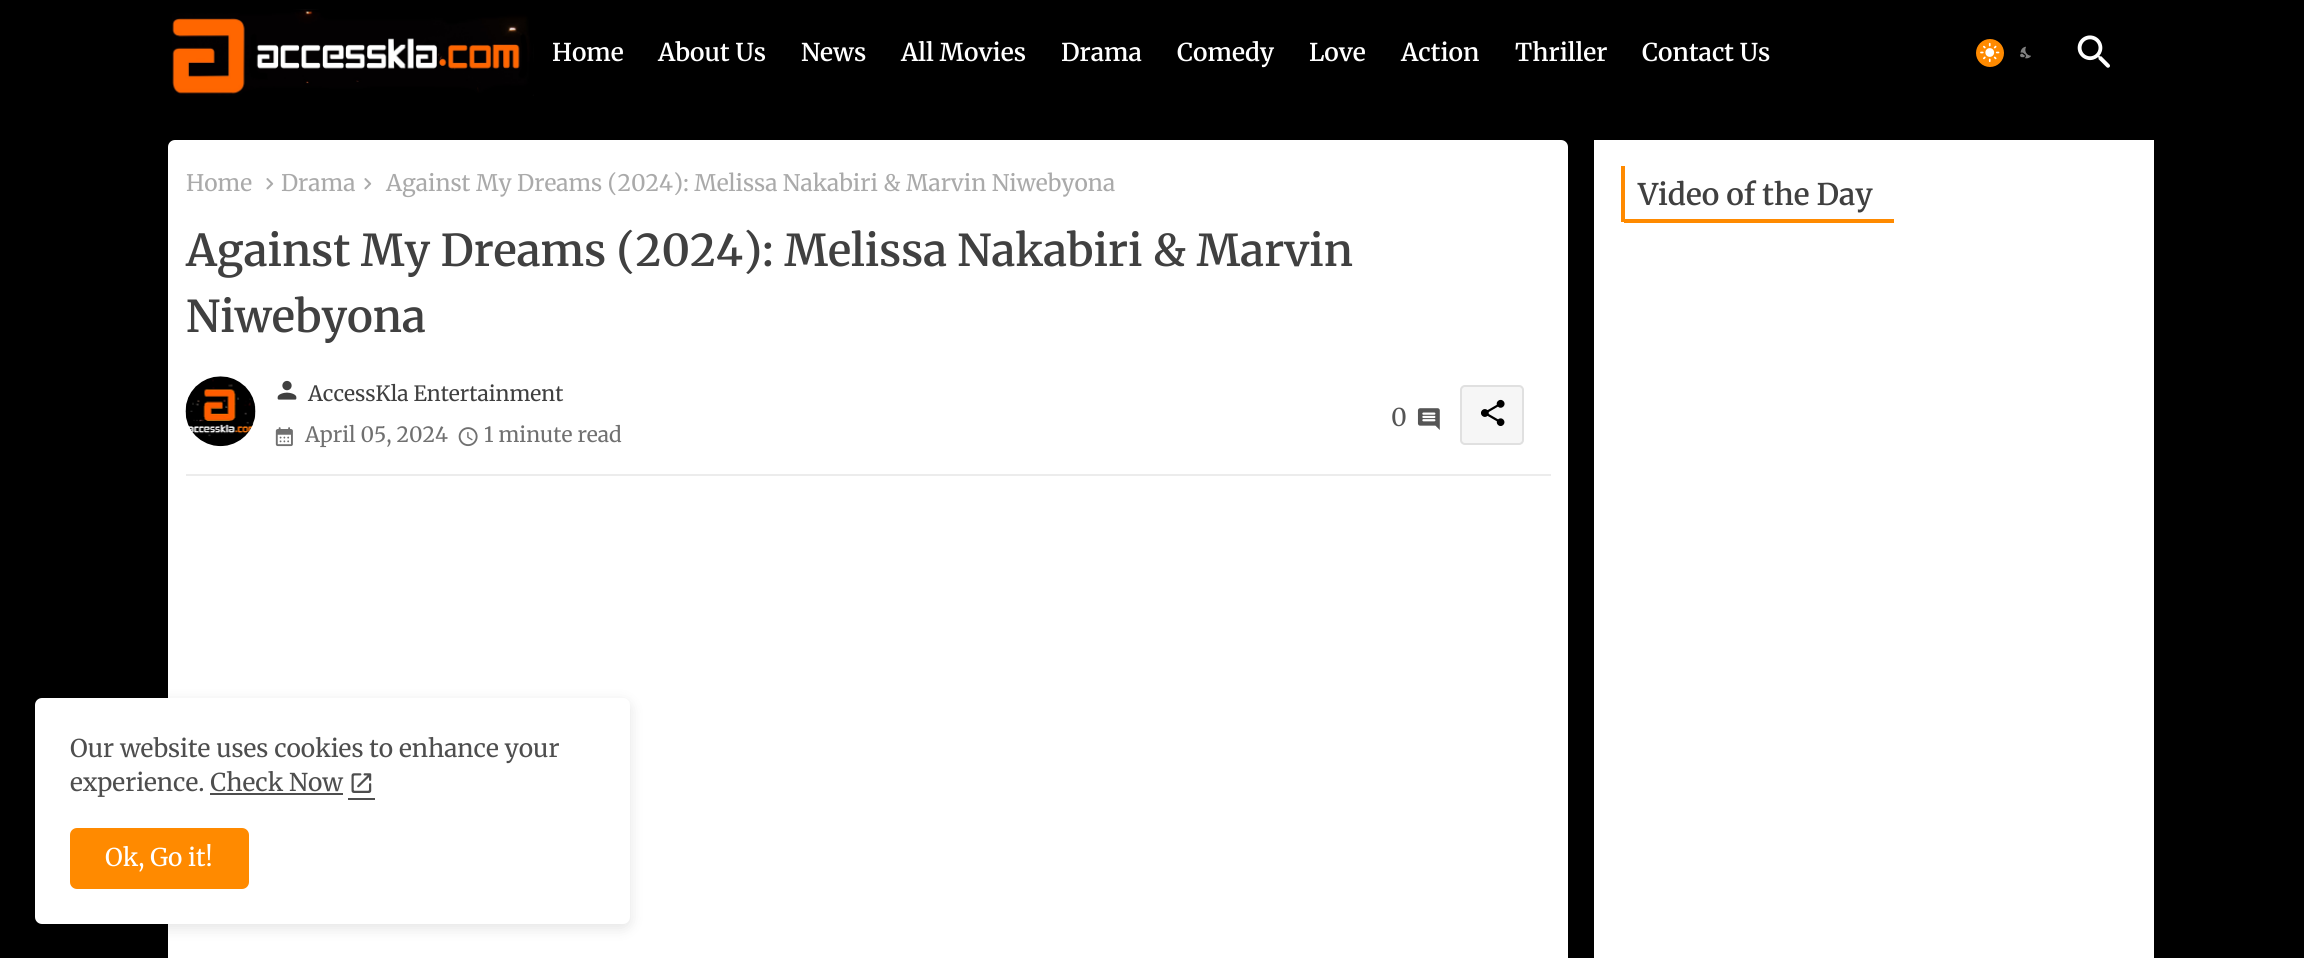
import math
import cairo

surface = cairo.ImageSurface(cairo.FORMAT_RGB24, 2304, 958)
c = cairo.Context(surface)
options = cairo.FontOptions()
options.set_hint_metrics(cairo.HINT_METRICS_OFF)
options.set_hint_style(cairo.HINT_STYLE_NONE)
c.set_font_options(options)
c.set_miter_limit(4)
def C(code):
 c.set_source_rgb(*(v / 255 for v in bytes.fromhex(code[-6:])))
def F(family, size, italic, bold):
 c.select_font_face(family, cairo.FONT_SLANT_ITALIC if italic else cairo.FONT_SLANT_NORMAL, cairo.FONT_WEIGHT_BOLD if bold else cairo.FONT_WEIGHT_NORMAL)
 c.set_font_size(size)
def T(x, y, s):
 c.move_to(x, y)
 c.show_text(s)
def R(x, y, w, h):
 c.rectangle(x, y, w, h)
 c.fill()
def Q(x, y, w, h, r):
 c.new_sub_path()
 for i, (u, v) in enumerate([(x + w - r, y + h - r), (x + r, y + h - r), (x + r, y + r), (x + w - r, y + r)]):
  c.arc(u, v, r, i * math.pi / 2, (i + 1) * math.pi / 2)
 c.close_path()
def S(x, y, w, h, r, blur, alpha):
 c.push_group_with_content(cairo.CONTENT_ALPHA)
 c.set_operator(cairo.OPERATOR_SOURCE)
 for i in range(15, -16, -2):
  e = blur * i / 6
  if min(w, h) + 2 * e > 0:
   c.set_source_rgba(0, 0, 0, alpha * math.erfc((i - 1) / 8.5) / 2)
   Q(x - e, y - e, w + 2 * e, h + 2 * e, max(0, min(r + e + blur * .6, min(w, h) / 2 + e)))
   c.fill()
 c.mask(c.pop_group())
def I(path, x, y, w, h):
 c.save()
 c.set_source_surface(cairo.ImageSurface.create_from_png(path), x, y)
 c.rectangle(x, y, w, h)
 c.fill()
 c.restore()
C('000000')
c.paint()
I('1.png',172,9,362,87)
F('Merriweather SemiBold',24.5,0,0)
C('ffffff')
T(552,61,'Home')
T(658,61,'About Us')
T(801,61,'News')
T(901,61,'All Movies')
T(1061,61,'Drama')
T(1177,61,'Comedy')
T(1309,61,'Love')
T(1401,61,'Action')
T(1515,61,'Thriller')
T(1642,61,'Contact Us')
C('ff8a00')
c.new_path()
c.arc(1990,53,14,0,2 * math.pi)
c.fill()
I('2.png',1980,42,20,21)
I('3.png',2020,46,11,13)
I('4.png',2077,35,33,33)
C('ffffff')
Q(168,140,1400,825,7)
c.fill()
F('Merriweather Light',22.75,0,0)
C('aaaaaa')
T(186,191,'Home')
I('5.png',266,178,8,12)
T(281,191,'Drama')
I('5.png',364,178,8,12)
T(386,191,'Against My Dreams (2024): Melissa Nakabiri & Marvin Niwebyona')
F('Merriweather SemiBold',43.75,0,0)
C('404040')
T(186,266,'Against My Dreams (2024): Melissa Nakabiri & Marvin')
T(186,332,'Niwebyona')
C('ececec')
R(186,474,1365,2)
I('6.png',185,376,71,71)
I('7.png',277,380,20,20)
F('Merriweather Light',21,0,0)
C('404040')
T(308,401,'AccessKla Entertainment')
I('8.png',275,427,18,20)
C('707070')
T(305,442,'April 05, 2024')
I('9.png',458,427,20,20)
T(484,442,'1 minute read')
F('Merriweather Light',24.5,0,0)
C('555555')
T(1391,426,'0')
I('10.png',1417,408,23,22)
C('f6f6f6')
Q(1460,385,64,60,5)
c.fill()
Q(1461,386,62,58,4)
c.set_source_rgba(0.506,0.506,0.506,0.19)
c.stroke()
I('11.png',1481,399,24,27)
C('ffffff')
R(1594,140,560,818)
C('ff8a00')
R(1621,166,4,56)
F('Merriweather SemiBold',29.75,0,0)
C('404040')
T(1638,205,'Video of the Day')
C('ff8a00')
R(1624,219,270,4)
C('000000')
S(35,702,595,226,7,7,.11)
C('ffffff')
Q(35,698,595,226,7)
c.fill()
F('Merriweather Light',24.5,0,0)
C('4e4e4e')
T(70,757,'Our website uses cookies to enhance your')
T(70,791,'experience. Check Now')
I('12.png',351,773,21,20)
R(210,793,133,2)
R(348,798,27,2)
C('ff8a00')
Q(70,828,179,61,7)
c.fill()
C('ffffff')
T(105,866,'Ok, Go it!')
surface.write_to_png('o.png')
